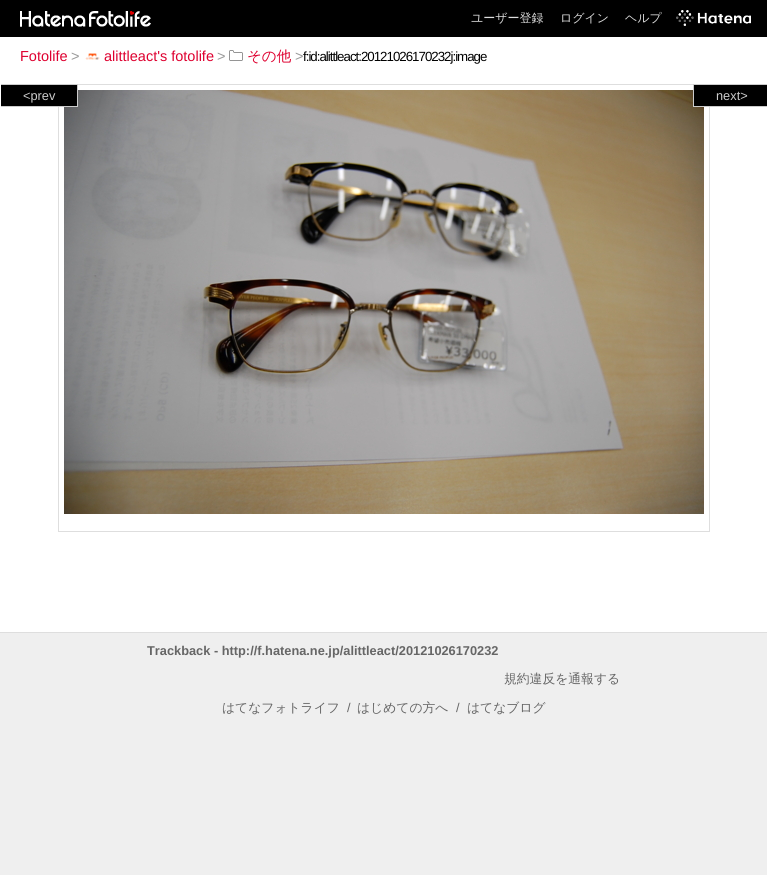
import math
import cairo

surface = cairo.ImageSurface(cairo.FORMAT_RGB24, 767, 875)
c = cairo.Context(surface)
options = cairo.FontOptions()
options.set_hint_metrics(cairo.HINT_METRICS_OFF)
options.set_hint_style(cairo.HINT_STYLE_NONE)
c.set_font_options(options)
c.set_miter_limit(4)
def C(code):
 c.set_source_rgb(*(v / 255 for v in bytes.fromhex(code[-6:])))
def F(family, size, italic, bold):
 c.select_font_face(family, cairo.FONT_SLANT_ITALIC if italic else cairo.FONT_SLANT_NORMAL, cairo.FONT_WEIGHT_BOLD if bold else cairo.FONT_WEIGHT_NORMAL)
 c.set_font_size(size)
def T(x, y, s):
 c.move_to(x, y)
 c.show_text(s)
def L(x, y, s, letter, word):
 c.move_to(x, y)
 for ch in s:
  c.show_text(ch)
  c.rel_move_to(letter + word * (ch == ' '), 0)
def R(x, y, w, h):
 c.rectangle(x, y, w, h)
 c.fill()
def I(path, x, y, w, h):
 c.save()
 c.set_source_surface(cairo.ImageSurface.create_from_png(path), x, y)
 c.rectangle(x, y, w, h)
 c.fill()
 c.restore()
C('efefef')
c.paint()
C('000000')
R(0,0,767,37)
I('1.png',20,11,66,16)
I('2.png',89,11,62,16)
F('WenQuanYi Zen Hei Medium',12,0,0)
C('dddddd')
T(471,22,'ユーザー登録')
T(560,22,'ログイン')
T(625,22,'ヘルプ')
I('3.png',676,10,75,16)
C('ffffff')
R(0,37,767,595)
F('Liberation Sans',14.5,0,0)
C('de002f')
T(20,61,'Fotolife')
C('999999')
T(71,61,'>')
I('4.png',85,53,15,7)
C('de002f')
T(104,61,'alittleact\'s fotolife')
C('999999')
T(217,61,'>')
I('5.png',229,50,14,11)
F('WenQuanYi Zen Hei Medium',14.5,0,0)
C('de002f')
T(247,61,'その他')
F('Liberation Sans',14.5,0,0)
C('999999')
T(295,61,'>')
F('Liberation Sans',13.3,0,0)
C('000000')
L(303,61,'f:id:alittleact:20121026170232j:image',-1,0)
C('dedede')
R(0,632,767,1)
c.rectangle(58.5,84.5,651,447)
c.set_line_width(1)
c.stroke()
I('6.png',64,90,640,424)
C('000000')
R(1,85,76,21)
C('cccccc')
R(1,84,77,1)
R(77,84,1,23)
R(1,106,77,1)
F('Liberation Sans',12.8,0,0)
T(23,100,'<prev')
C('000000')
R(694,85,73,21)
C('cccccc')
R(693,84,74,1)
R(693,106,74,1)
R(693,84,1,23)
T(716,100,'next>')
F('Liberation Sans',12.8,0,1)
C('666666')
T(147,655,'Trackback - http://f.hatena.ne.jp/alittleact/20121026170232')
F('WenQuanYi Zen Hei Medium',12.8,0,0)
T(504,683,'規約違反を通報する')
T(222,712,'はてなフォトライフ')
F('Liberation Sans',12.8,0,0)
T(347,712,'/')
F('WenQuanYi Zen Hei Medium',12.8,0,0)
T(357,712,'はじめての方へ')
F('Liberation Sans',12.8,0,0)
T(456,712,'/')
F('WenQuanYi Zen Hei Medium',12.8,0,0)
T(467,712,'はてなブログ')
surface.write_to_png('o.png')
